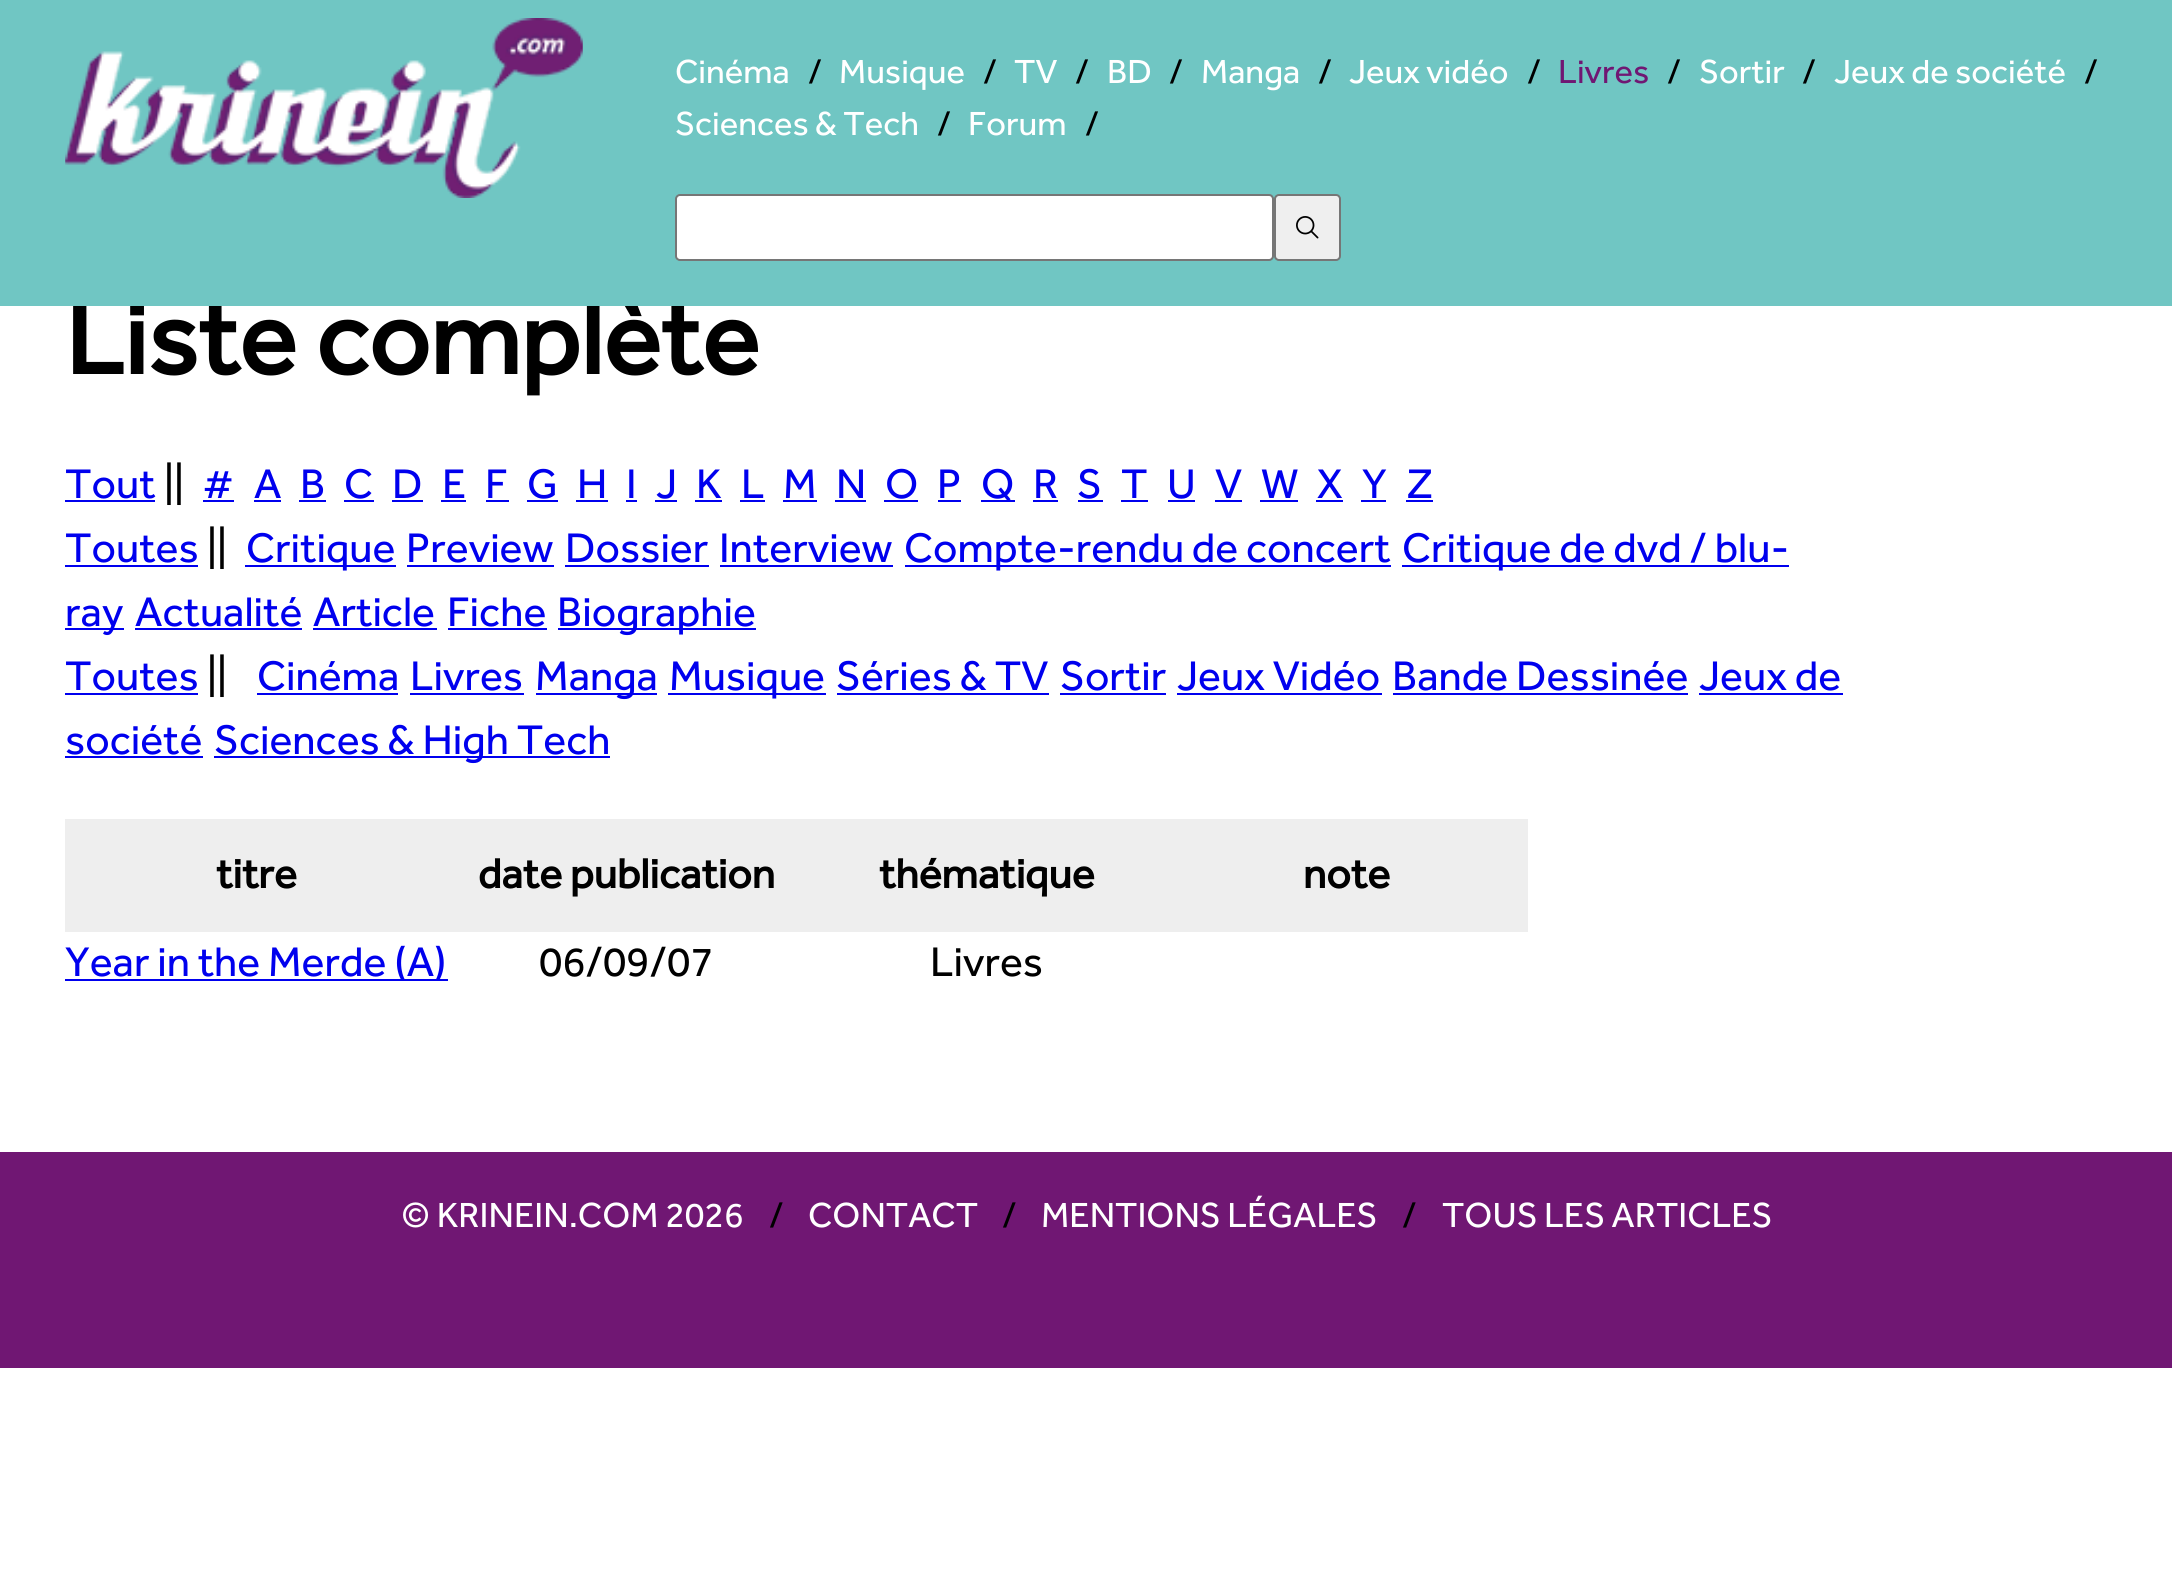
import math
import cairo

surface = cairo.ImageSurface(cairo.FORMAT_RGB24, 2172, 1576)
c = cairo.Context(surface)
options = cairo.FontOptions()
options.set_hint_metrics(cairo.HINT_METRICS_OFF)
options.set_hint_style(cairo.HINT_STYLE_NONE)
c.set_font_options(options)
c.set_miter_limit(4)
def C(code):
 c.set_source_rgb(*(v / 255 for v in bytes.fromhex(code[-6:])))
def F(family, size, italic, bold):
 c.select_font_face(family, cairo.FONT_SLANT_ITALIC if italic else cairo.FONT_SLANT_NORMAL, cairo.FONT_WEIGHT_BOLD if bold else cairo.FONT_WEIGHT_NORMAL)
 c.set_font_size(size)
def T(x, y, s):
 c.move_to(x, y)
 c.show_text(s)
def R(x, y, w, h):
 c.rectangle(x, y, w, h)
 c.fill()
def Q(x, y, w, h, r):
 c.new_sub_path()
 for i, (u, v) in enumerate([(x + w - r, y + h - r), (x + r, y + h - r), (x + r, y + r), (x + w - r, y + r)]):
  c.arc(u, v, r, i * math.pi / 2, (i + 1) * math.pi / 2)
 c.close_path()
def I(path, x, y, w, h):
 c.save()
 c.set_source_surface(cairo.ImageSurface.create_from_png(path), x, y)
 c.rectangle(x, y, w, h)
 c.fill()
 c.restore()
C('ffffff')
c.paint()
F('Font',107,0,1)
C('000000')
T(65,374,'Liste complète')
C('70c6c3')
R(0,0,2172,306)
I('1.png',65,18,518,180)
F('Font',34.5,0,0)
C('ffffff')
T(675,83,'Cinéma')
C('000000')
T(808,83,'/')
C('ffffff')
T(839,83,'Musique')
C('000000')
T(983,83,'/')
C('ffffff')
T(1014,83,'TV')
C('000000')
T(1075,83,'/')
C('ffffff')
T(1107,83,'BD')
C('000000')
T(1169,83,'/')
C('ffffff')
T(1201,83,'Manga')
C('000000')
T(1318,83,'/')
C('ffffff')
T(1349,83,'Jeux vidéo')
C('000000')
T(1527,83,'/')
C('701773')
T(1558,83,'Livres')
C('000000')
T(1667,83,'/')
C('ffffff')
T(1699,83,'Sortir')
C('000000')
T(1802,83,'/')
C('ffffff')
T(1834,83,'Jeux de société')
C('000000')
T(2084,83,'/')
C('ffffff')
T(675,135,'Sciences & Tech')
C('000000')
T(937,135,'/')
C('ffffff')
T(968,135,'Forum')
C('000000')
T(1085,135,'/')
C('ffffff')
Q(676,195,597,65,4)
c.fill_preserve()
C('767676')
c.stroke()
C('efefef')
Q(1275,195,65,65,4)
c.fill_preserve()
C('767676')
c.stroke()
I('2.png',1296,216,23,23)
F('Font',42.75,0,0)
C('0000ee')
T(65,498,'Tout')
R(65,500,90,2)
C('000000')
T(164,498,'||')
C('0000ee')
T(202,498,'#')
R(203,500,31,2)
T(254,498,'A')
R(254,500,27,2)
T(300,498,'B')
R(299,500,27,2)
T(344,498,'C')
R(344,500,30,2)
T(392,498,'D')
R(392,500,31,2)
T(442,498,'E')
R(441,500,25,2)
T(485,498,'F')
R(486,500,23,2)
T(527,498,'G')
R(527,500,31,2)
T(577,498,'H')
R(576,500,32,2)
T(626,498,'I')
R(626,500,11,2)
T(656,498,'J')
R(655,500,22,2)
T(696,498,'K')
R(695,500,27,2)
T(741,498,'L')
R(740,500,25,2)
T(783,498,'M')
R(783,500,34,2)
T(836,498,'N')
R(835,500,31,2)
T(885,498,'O')
R(884,500,34,2)
T(937,498,'P')
R(938,500,23,2)
R(981,500,34,2)
T(981,498,'Q')
T(1033,498,'R')
R(1033,500,25,2)
T(1077,498,'S')
R(1078,500,25,2)
T(1121,498,'T')
R(1121,500,27,2)
T(1167,498,'U')
R(1168,500,27,2)
T(1215,498,'V')
R(1215,500,27,2)
T(1261,498,'W')
R(1260,500,38,2)
T(1317,498,'X')
R(1316,500,27,2)
T(1362,498,'Y')
R(1361,500,25,2)
T(1406,498,'Z')
R(1406,500,27,2)
T(65,562,'Toutes')
R(65,565,133,2)
C('000000')
T(207,562,'||')
C('0000ee')
R(245,565,151,2)
T(246,562,'Critique')
T(406,562,'Preview')
R(407,565,147,2)
T(565,562,'Dossier')
R(565,565,144,2)
T(719,562,'Interview')
R(720,565,173,2)
R(905,565,486,2)
T(904,562,'Compte-rendu de concert')
R(1402,565,387,2)
T(1402,562,'Critique de dvd / blu-')
R(65,628,59,2)
T(65,626,'ray')
T(135,626,'Actualité')
R(135,628,167,2)
T(313,626,'Article')
R(313,628,124,2)
T(447,626,'Fiche')
R(448,628,99,2)
R(558,628,198,2)
T(557,626,'Biographie')
T(65,690,'Toutes')
R(65,693,133,2)
C('000000')
T(207,690,'||')
C('0000ee')
T(257,690,'Cinéma')
R(257,693,141,2)
T(410,690,'Livres')
R(410,693,114,2)
R(536,693,121,2)
T(535,690,'Manga')
R(668,693,158,2)
T(669,690,'Musique')
T(836,690,'Séries & TV')
R(837,693,212,2)
T(1060,690,'Sortir')
R(1060,693,106,2)
T(1177,690,'Jeux Vidéo')
R(1177,693,205,2)
T(1392,690,'Bande Dessinée')
R(1393,693,295,2)
T(1699,690,'Jeux de')
R(1699,693,144,2)
T(65,754,'société')
R(65,756,138,2)
R(214,756,396,2)
T(214,754,'Sciences & High Tech')
C('eeeeee')
R(65,819,1463,113)
F('Font',42.75,0,1)
C('000000')
T(216,888,'titre')
T(478,888,'date publication')
T(879,888,'thématique')
T(1303,888,'note')
C('0000ee')
R(65,979,383,2)
F('Font',42.75,0,0)
T(65,976,'Year in the Merde (A)')
C('000000')
T(539,976,'06/09/07')
T(930,976,'Livres')
C('701773')
R(0,1152,2172,216)
F('Font',36,0,0)
C('ffffff')
T(401,1227,'© KRINEIN.COM 2026')
C('000000')
T(769,1227,'/')
C('ffffff')
T(808,1227,'CONTACT')
C('000000')
T(1002,1227,'/')
C('ffffff')
T(1041,1227,'MENTIONS LÉGALES')
C('000000')
T(1402,1227,'/')
C('ffffff')
T(1442,1227,'TOUS LES ARTICLES')
surface.write_to_png('o.png')
